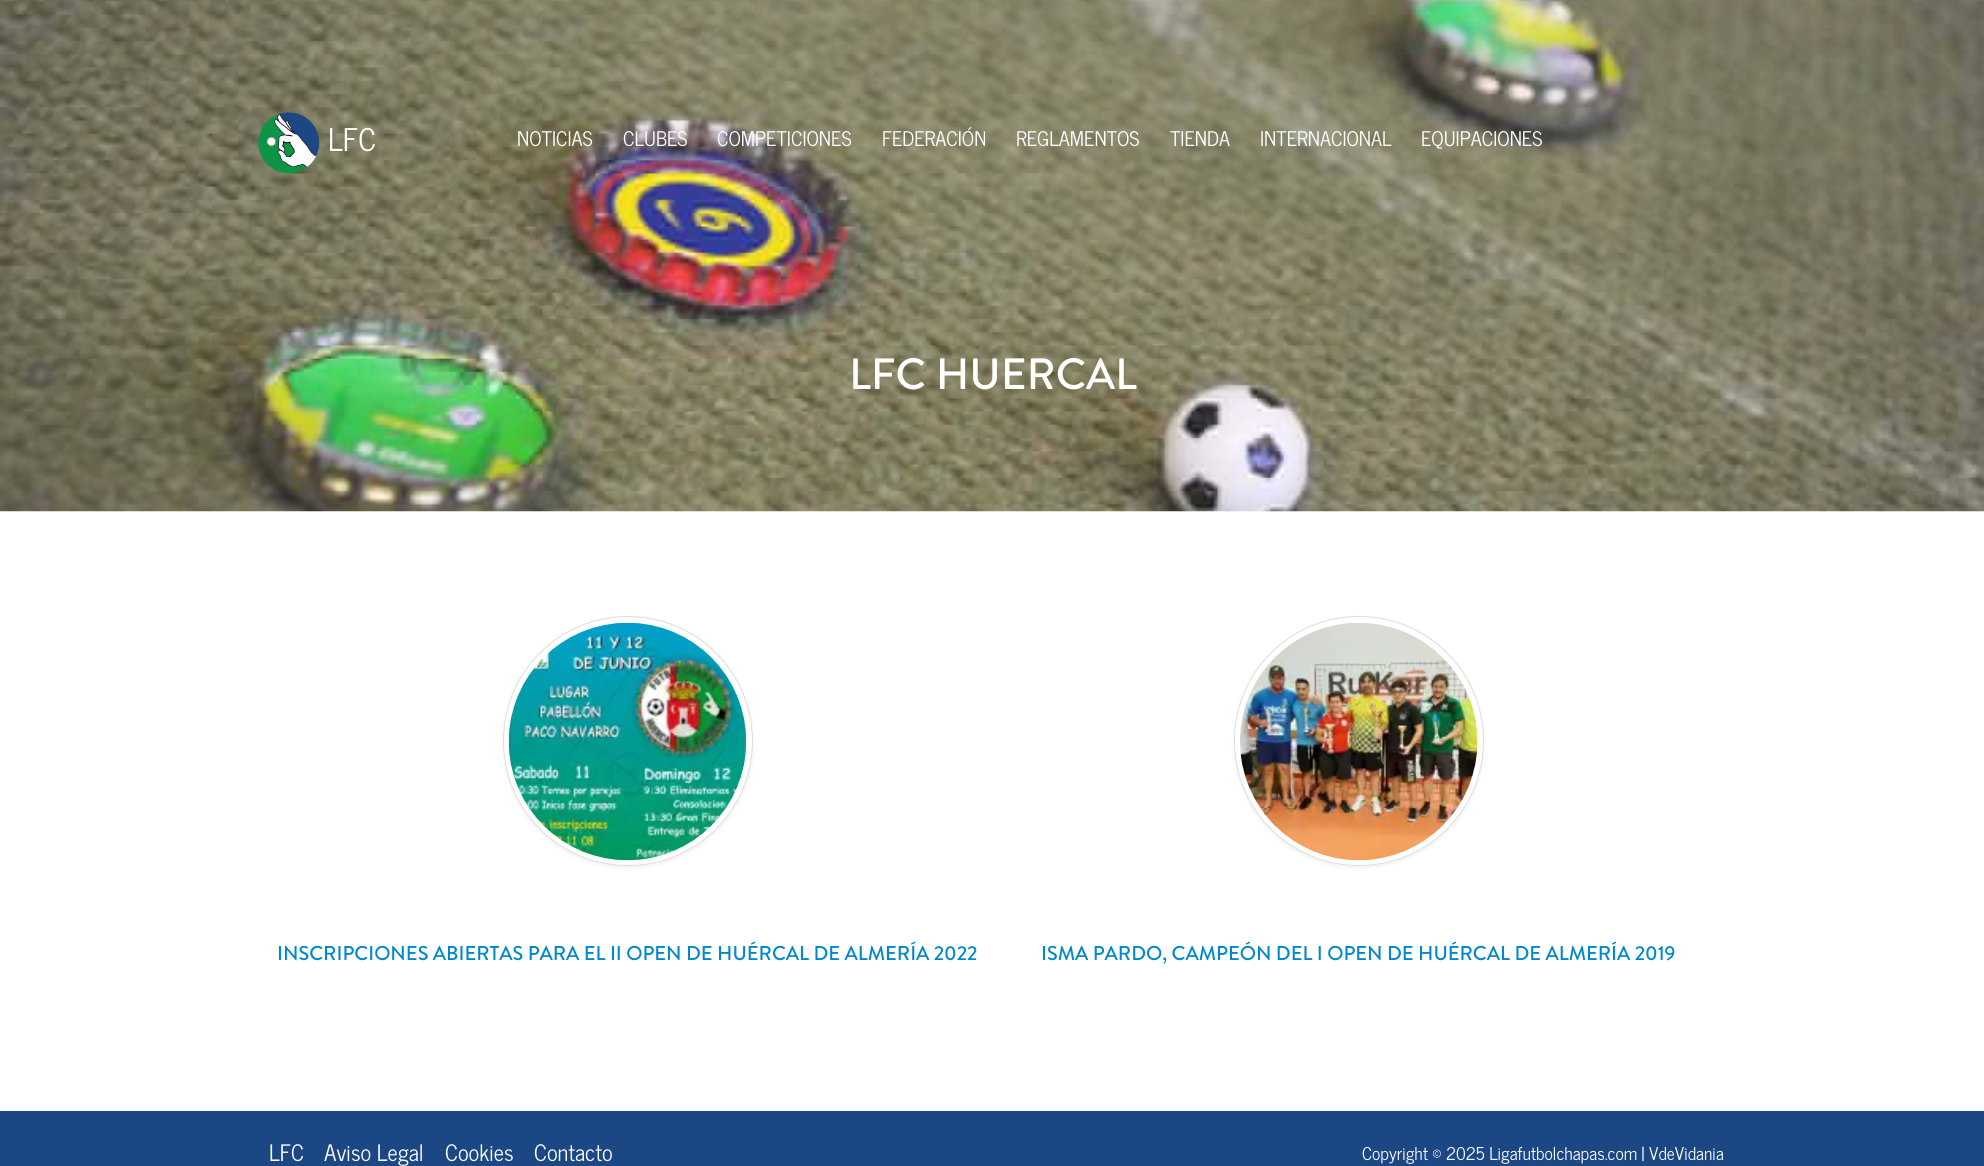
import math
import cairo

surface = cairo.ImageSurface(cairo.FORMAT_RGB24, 1984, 1166)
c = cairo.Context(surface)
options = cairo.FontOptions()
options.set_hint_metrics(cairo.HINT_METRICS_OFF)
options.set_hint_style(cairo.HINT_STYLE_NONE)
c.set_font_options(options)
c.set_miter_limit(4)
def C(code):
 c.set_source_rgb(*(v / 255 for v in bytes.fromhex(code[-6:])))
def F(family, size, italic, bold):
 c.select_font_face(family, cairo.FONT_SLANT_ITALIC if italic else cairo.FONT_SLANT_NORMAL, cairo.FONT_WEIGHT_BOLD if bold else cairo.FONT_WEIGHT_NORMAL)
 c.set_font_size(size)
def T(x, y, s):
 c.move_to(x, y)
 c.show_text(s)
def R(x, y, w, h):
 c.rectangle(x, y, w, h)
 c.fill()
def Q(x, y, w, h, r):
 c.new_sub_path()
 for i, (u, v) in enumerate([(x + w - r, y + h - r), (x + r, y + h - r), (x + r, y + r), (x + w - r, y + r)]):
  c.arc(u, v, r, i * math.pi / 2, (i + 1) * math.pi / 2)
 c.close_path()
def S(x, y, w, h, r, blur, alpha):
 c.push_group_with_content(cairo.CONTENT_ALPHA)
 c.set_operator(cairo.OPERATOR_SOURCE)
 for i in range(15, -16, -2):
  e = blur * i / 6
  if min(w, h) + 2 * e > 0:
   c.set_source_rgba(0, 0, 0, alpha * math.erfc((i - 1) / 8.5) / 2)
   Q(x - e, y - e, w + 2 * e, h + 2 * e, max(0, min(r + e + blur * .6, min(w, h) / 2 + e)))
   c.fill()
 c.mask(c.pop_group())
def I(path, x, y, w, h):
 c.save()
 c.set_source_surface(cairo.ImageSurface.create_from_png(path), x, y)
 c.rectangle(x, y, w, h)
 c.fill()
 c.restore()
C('ffffff')
c.paint()
I('2.png',0,0,1984,512)
I('1.png',258,112,62,62)
F('News Cycle',31,0,0)
C('ffffff')
T(328,151,'LFC')
F('News Cycle',20,0,0)
T(517,146,'NOTICIAS')
T(623,146,'CLUBES')
T(717,146,'COMPETICIONES')
T(882,146,'FEDERACIÓN')
T(1016,146,'REGLAMENTOS')
T(1170,146,'TIENDA')
T(1260,146,'INTERNACIONAL')
T(1421,146,'EQUIPACIONES')
F('Brandon Grotesque Medium',43.75,0,0)
T(849,389,'LFC HUERCAL')
c.save()
c.set_fill_rule(cairo.FILL_RULE_EVEN_ODD)
c.new_path()
c.move_to(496,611)
c.line_to(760,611)
c.line_to(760,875)
c.line_to(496,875)
c.close_path()
c.move_to(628,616)
c.curve_to(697,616,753,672,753,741)
c.curve_to(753,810,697,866,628,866)
c.curve_to(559,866,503,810,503,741)
c.curve_to(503,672,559,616,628,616)
c.close_path()
c.clip()
C('000000')
S(503,618,250,250,125,2,.06)
c.restore()
c.arc(628,741,124.5,0,2 * math.pi)
C('dddddd')
c.set_line_width(1)
c.stroke()
I('3.png',508,622,239,239)
F('Brandon Grotesque Medium',20,0,0)
C('0088cc')
T(277,960,'INSCRIPCIONES ABIERTAS PARA EL II OPEN DE HUÉRCAL DE ALMERÍA 2022')
c.save()
c.set_fill_rule(cairo.FILL_RULE_EVEN_ODD)
c.new_path()
c.move_to(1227,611)
c.line_to(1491,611)
c.line_to(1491,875)
c.line_to(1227,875)
c.close_path()
c.move_to(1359,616)
c.curve_to(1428,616,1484,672,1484,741)
c.curve_to(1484,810,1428,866,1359,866)
c.curve_to(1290,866,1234,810,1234,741)
c.curve_to(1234,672,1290,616,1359,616)
c.close_path()
c.clip()
C('000000')
S(1234,618,250,250,125,2,.06)
c.restore()
c.arc(1359,741,124.5,0,2 * math.pi)
C('dddddd')
c.stroke()
I('4.png',1240,623,238,238)
C('0088cc')
T(1041,960,'ISMA PARDO, CAMPEÓN DEL I OPEN DE HUÉRCAL DE ALMERÍA 2019')
C('1b4784')
R(0,1111,1984,55)
F('News Cycle',22.5,0,0)
C('ffffff')
T(269,1161,'LFC')
T(324,1161,'Aviso Legal')
T(445,1161,'Cookies')
T(534,1161,'Contacto')
F('News Cycle',17.5,0,0)
T(1362,1160,'Copyright © 2025 Ligafutbolchapas.com | VdeVidania')
surface.write_to_png('o.png')
